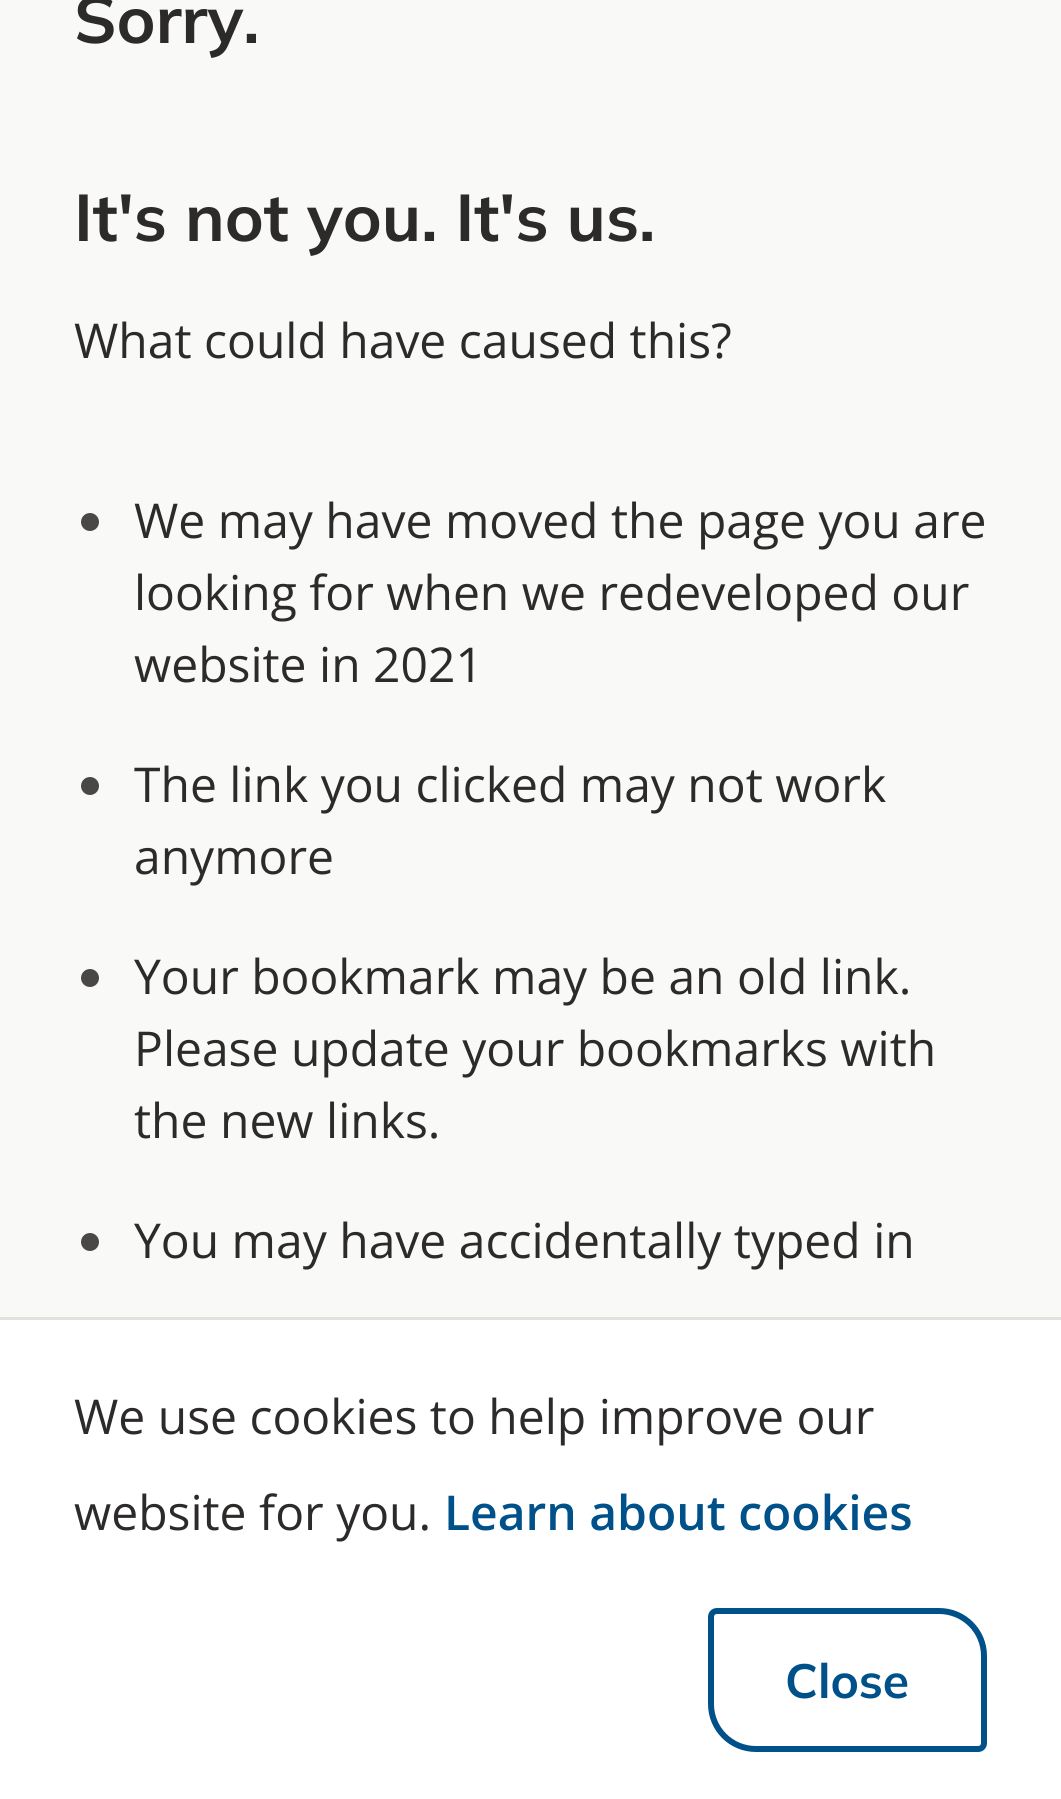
import math
import cairo

surface = cairo.ImageSurface(cairo.FORMAT_RGB24, 1061, 1799)
c = cairo.Context(surface)
options = cairo.FontOptions()
options.set_hint_metrics(cairo.HINT_METRICS_OFF)
options.set_hint_style(cairo.HINT_STYLE_NONE)
c.set_font_options(options)
c.set_miter_limit(4)
def C(code):
 c.set_source_rgb(*(v / 255 for v in bytes.fromhex(code[-6:])))
def F(family, size, italic, bold):
 c.select_font_face(family, cairo.FONT_SLANT_ITALIC if italic else cairo.FONT_SLANT_NORMAL, cairo.FONT_WEIGHT_BOLD if bold else cairo.FONT_WEIGHT_NORMAL)
 c.set_font_size(size)
def T(x, y, s):
 c.move_to(x, y)
 c.show_text(s)
def R(x, y, w, h):
 c.rectangle(x, y, w, h)
 c.fill()
C('f9f9f8')
c.paint()
F('Mulish',66,0,1)
C('2d2a2a')
T(74,43,'Sorry.')
T(74,241,'It\'s not you. It\'s us.')
F('Open Sans',48,0,0)
T(74,358,'What could have caused this?')
C('4a4846')
c.new_path()
c.arc(90,522,9,0,2 * math.pi)
c.fill()
C('2d2a2a')
T(134,538,'We may have moved the page you are')
T(134,610,'looking for when we redeveloped our')
T(134,682,'website in 2021')
C('4a4846')
c.new_path()
c.arc(90,786,9,0,2 * math.pi)
c.fill()
C('2d2a2a')
T(134,802,'The link you clicked may not work')
T(134,874,'anymore')
C('4a4846')
c.new_path()
c.arc(90,978,9,0,2 * math.pi)
c.fill()
C('2d2a2a')
T(134,994,'Your bookmark may be an old link.')
T(134,1066,'Please update your bookmarks with')
T(134,1138,'the new links.')
C('4a4846')
c.new_path()
c.arc(90,1242,9,0,2 * math.pi)
c.fill()
C('2d2a2a')
T(134,1258,'You may have accidentally typed in')
C('ffffff')
R(0,1320,1061,479)
C('e5e2dd')
R(0,1317,1061,3)
C('2d2a2a')
T(74,1434,'We use cookies to help improve our')
T(74,1530,'website for you.')
F('Open Sans SemiBold',48,0,0)
C('005189')
T(444,1530,'Learn about cookies')
c.new_path()
c.move_to(717,1611)
c.line_to(939,1611)
c.curve_to(964,1611,984,1631,984,1656)
c.line_to(984,1743)
c.curve_to(984,1746.5,981.5,1749,978,1749)
c.line_to(756,1749)
c.curve_to(731,1749,711,1729,711,1704)
c.line_to(711,1617)
c.curve_to(711,1613.5,713.5,1611,717,1611)
c.close_path()
c.set_line_width(6)
c.stroke()
F('Mulish',48,0,1)
T(785,1698,'Close')
surface.write_to_png('o.png')
